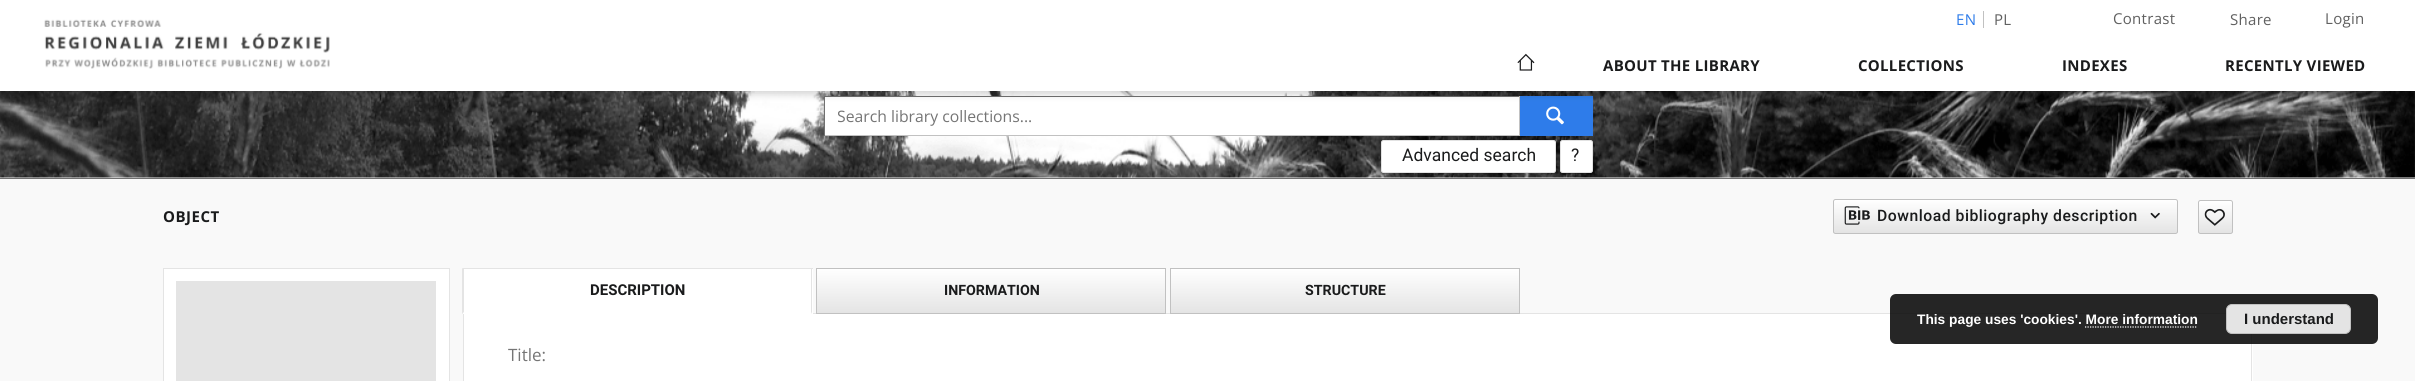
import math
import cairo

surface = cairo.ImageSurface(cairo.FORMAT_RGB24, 2415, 381)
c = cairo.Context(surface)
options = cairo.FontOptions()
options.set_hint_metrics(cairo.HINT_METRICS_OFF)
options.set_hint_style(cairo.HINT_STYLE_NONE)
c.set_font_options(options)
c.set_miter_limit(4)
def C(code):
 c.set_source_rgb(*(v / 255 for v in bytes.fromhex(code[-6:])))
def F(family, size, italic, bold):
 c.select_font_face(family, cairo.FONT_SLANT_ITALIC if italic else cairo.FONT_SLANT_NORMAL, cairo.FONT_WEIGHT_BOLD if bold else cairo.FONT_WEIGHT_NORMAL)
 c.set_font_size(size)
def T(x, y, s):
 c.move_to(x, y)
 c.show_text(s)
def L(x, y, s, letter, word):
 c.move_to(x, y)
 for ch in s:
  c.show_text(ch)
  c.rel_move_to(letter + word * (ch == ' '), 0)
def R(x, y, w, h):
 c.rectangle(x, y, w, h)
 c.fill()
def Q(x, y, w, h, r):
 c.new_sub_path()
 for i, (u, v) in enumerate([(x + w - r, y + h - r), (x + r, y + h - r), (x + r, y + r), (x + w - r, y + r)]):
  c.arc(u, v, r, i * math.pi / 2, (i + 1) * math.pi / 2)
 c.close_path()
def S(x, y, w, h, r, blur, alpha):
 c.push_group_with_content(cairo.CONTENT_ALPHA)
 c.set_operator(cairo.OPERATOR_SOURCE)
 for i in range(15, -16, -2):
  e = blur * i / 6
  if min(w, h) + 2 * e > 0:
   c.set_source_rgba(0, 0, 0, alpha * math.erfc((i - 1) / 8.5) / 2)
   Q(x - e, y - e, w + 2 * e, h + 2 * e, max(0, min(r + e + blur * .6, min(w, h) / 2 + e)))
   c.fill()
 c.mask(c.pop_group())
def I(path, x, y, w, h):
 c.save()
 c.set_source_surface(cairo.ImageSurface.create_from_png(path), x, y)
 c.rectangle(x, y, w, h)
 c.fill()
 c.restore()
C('f9f9f9')
c.paint()
C('f5f5f5')
R(0,177,2415,1)
I('3.png',0,91,2415,87)
C('ffffff')
R(825,97,694,38)
C('707070')
R(824,96,696,1)
C('c1c1c1')
R(1519,96,1,40)
R(824,135,696,1)
C('707070')
R(824,96,1,40)
C('2e7cea')
R(1520,96,73,40)
I('4.png',1546,106,18,19)
C('000000')
S(0,1,2415,92,0,6,.08)
S(0,5,2415,91,0,3,.06)
S(1,4,2413,89,0,2.5,.06)
C('ffffff')
R(0,0,2415,91)
C('c1c1c1')
R(1983,11,1,17)
F('Open Sans',15,0,0)
C('2e7cea')
L(1956,25,'EN',.3,0)
C('606060')
L(1994,25,'PL',.3,0)
L(2113,24,'Contrast',.3,0)
L(2230,25,'Share',.3,0)
L(2325,24,'Login',.3,0)
I('1.png',44,19,286,50)
I('2.png',1517,53,18,18)
F('Open Sans',15,0,1)
C('1a1b1c')
L(1603,71,'ABOUT THE LIBRARY',.3,0)
L(1858,71,'COLLECTIONS',.3,0)
L(2062,71,'INDEXES',.3,0)
L(2225,71,'RECENTLY VIEWED',.3,0)
C('707070')
R(0,178,2415,1)
c.save()
c.rectangle(838,106,668,22)
c.clip()
F('Open Sans',15.75,0,0)
C('757575')
T(837,122,'Search library collections...')
c.restore()
C('ffffff')
Q(1381.5,140.5,174,32,2)
c.fill_preserve()
C('e2e2e2')
c.set_line_width(1)
c.stroke()
F('Roboto',17.5,0,0)
C('1a1b1c')
T(1402,161,'Advanced search')
C('ffffff')
Q(1560.5,140.5,32,32,2)
c.fill_preserve()
C('e2e2e2')
c.stroke()
C('1a1b1c')
T(1571,161,'?')
F('Open Sans',15,0,1)
L(163,222,'OBJECT',.5,0)
c.save()
Q(1833,199,345,35,2.5)
c.clip()
gradient = cairo.LinearGradient(2005,200,2005,233)
gradient.add_color_stop_rgba(0,1,1,1,1)
gradient.add_color_stop_rgba(1,0.894,0.894,0.894,1)
c.set_source(gradient)
R(1833,200,345,33)
c.restore()
Q(1833.5,199.5,344,34,2)
C('c1c1c1')
c.stroke()
I('5.png',1844,206,26,19)
F('Roboto Medium',15.75,0,0)
C('1a1b1c')
L(1877,221,'Download bibliography description',.5,0)
I('6.png',2150,212,10,7)
c.save()
Q(2198,200,35,34,2.5)
c.clip()
gradient = cairo.LinearGradient(2215,201,2215,233)
gradient.add_color_stop_rgba(0,1,1,1,1)
gradient.add_color_stop_rgba(1,0.894,0.894,0.894,1)
c.set_source(gradient)
R(2198,201,35,32)
c.restore()
Q(2198.5,200.5,34,33,2)
C('c1c1c1')
c.stroke()
I('7.png',2204,208,21,18)
C('ffffff')
c.rectangle(163.5,268.5,286,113)
c.fill_preserve()
C('e4e4e4')
c.stroke()
R(176,281,260,100)
R(813,313,1413,1)
C('ffffff')
R(463,269,350,45)
C('e4e4e4')
R(463,268,350,1)
c.new_path()
c.move_to(812,268)
c.line_to(812,314)
c.line_to(811,312)
c.line_to(811,269)
c.close_path()
c.fill()
c.new_path()
c.move_to(462,314)
c.line_to(462,268)
c.line_to(464,269)
c.line_to(464,312)
c.close_path()
c.fill()
F('Roboto',15,0,1)
C('1a1b1c')
T(590,295,'DESCRIPTION')
gradient = cairo.LinearGradient(991,269,991,313)
gradient.add_color_stop_rgba(0,1,1,1,1)
gradient.add_color_stop_rgba(1,0.894,0.894,0.894,1)
c.set_source(gradient)
R(817,269,348,44)
c.rectangle(816.5,268.5,349,45)
C('c1c1c1')
c.stroke()
F('Roboto',14.25,0,1)
C('1a1b1c')
T(944,295,'INFORMATION')
gradient = cairo.LinearGradient(1345,269,1345,313)
gradient.add_color_stop_rgba(0,1,1,1,1)
gradient.add_color_stop_rgba(1,0.894,0.894,0.894,1)
c.set_source(gradient)
R(1171,269,348,44)
c.rectangle(1170.5,268.5,349,45)
C('c1c1c1')
c.stroke()
C('1a1b1c')
T(1305,295,'STRUCTURE')
C('ffffff')
R(464,314,1789,67)
C('e4e4e4')
R(2251,334,1,47)
R(463,314,1,67)
F('Open Sans',17,0,0)
C('757575')
T(508,361,'Title:')
c.set_source_rgba(0,0,0,0.85)
Q(1890,294,488,50,6)
c.fill()
F('Liberation Sans',13.75,0,1)
C('ffffff')
T(1917,324,'This page uses \'cookies\'. More information')
C('e4e4e4')
Q(2226.5,304.5,124,29,5.5)
c.fill_preserve()
C('c1c1c1')
c.stroke()
F('Liberation Sans',15,0,1)
C('1a1b1c')
T(2244,324,'I understand')
c.new_path()
c.move_to(2085,327)
c.line_to(2197.5,327)
C('ffffff')
c.set_line_width(1.2)
c.set_dash([1.25,1.25])
c.stroke()
surface.write_to_png('o.png')
